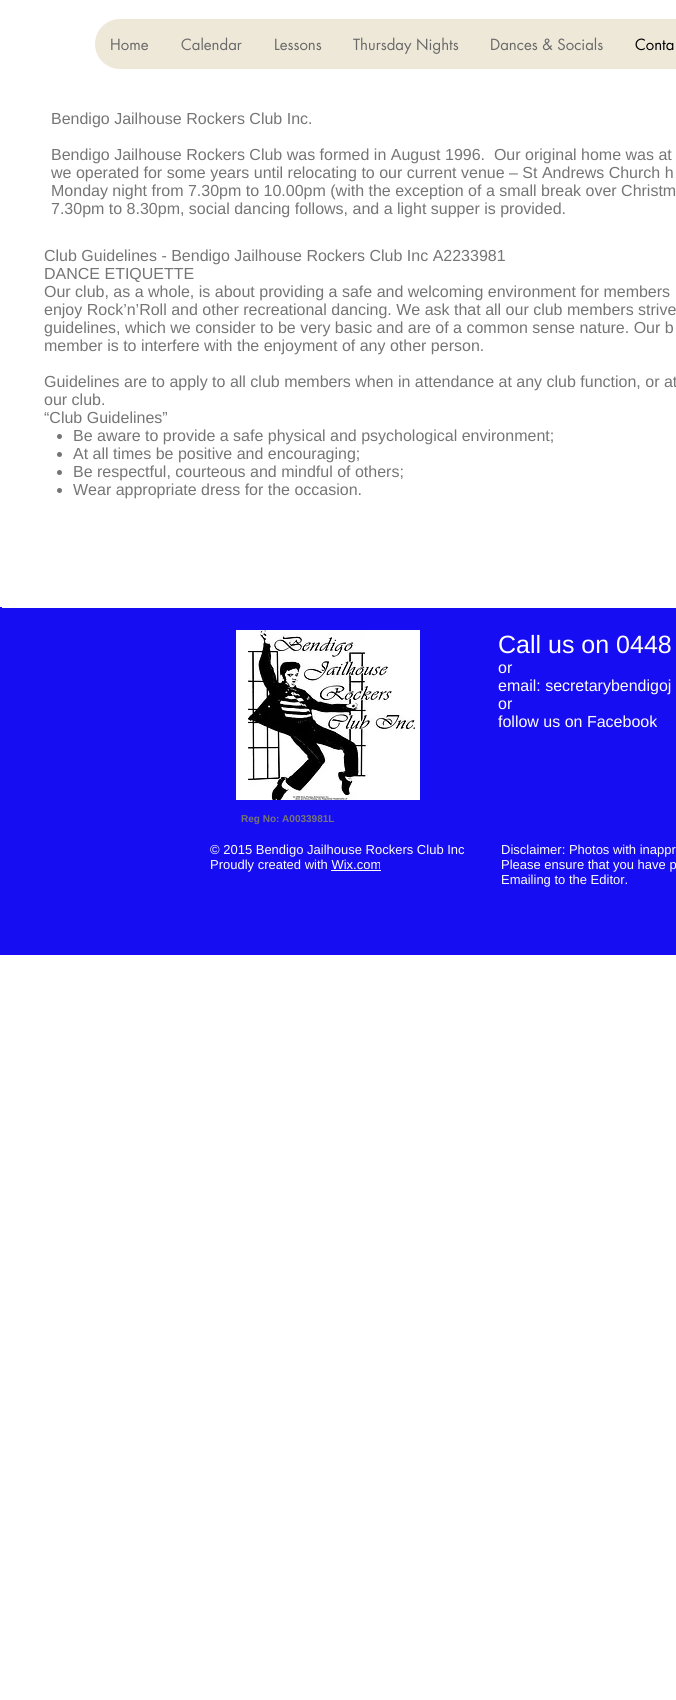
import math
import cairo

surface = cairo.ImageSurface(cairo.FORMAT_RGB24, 676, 1700)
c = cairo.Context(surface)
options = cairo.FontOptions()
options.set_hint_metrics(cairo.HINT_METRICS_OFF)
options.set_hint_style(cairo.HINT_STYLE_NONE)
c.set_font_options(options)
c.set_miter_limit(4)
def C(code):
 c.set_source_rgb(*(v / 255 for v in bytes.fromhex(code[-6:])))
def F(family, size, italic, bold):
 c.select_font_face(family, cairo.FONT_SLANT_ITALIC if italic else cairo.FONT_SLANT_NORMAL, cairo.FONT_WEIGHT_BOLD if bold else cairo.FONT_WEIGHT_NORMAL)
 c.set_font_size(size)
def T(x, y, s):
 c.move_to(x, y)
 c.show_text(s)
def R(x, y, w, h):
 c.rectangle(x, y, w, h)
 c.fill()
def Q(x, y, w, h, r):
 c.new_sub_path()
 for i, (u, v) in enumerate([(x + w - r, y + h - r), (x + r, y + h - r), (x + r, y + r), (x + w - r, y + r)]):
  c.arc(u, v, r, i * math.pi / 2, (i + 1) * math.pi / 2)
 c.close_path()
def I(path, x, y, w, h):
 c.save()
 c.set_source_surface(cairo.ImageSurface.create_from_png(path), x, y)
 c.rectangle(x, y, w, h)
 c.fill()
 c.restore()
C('ffffff')
c.paint()
C('eee8d8')
Q(95,19,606,50,25)
c.fill()
F('futura',15,0,0)
C('696969')
T(110,50,'Home')
T(181,50,'Calendar')
T(274,50,'Lessons')
T(353,50,'Thursday Nights')
T(490,50,'Dances & Socials')
C('000000')
T(635,50,'Conta')
F('Liberation Sans',16,0,0)
C('757575')
T(51,124,'Bendigo Jailhouse Rockers Club Inc.')
T(51,160,'Bendigo Jailhouse Rockers Club was formed in August 1996.  Our original home was at')
T(51,178,'we operated for some years until relocating to our current venue – St Andrews Church h')
T(51,196,'Monday night from 7.30pm to 10.00pm (with the exception of a small break over Christm')
T(51,214,'7.30pm to 8.30pm, social dancing follows, and a light supper is provided.')
T(44,261,'Club Guidelines - Bendigo Jailhouse Rockers Club Inc A2233981')
T(44,279,'DANCE ETIQUETTE')
T(44,297,'Our club, as a whole, is about providing a safe and welcoming environment for members')
T(44,315,'enjoy Rock’n’Roll and other recreational dancing. We ask that all our club members strive')
T(44,333,'guidelines, which we consider to be very basic and are of a common sense nature. Our b')
T(44,351,'member is to interfere with the enjoyment of any other person.')
T(44,387,'Guidelines are to apply to all club members when in attendance at any club function, or at')
T(44,405,'our club.')
T(44,423,'“Club Guidelines”')
c.new_path()
c.arc(59.5,436.5,2.5,0,2 * math.pi)
c.fill()
T(73,441,'Be aware to provide a safe physical and psychological environment;')
c.new_path()
c.arc(59.5,454.5,2.5,0,2 * math.pi)
c.fill()
T(73,459,'At all times be positive and encouraging;')
c.new_path()
c.arc(59.5,472.5,2.5,0,2 * math.pi)
c.fill()
T(73,477,'Be respectful, courteous and mindful of others;')
c.new_path()
c.arc(59.5,490.5,2.5,0,2 * math.pi)
c.fill()
T(73,495,'Wear appropriate dress for the occasion.')
C('170df2')
R(0,607,676,348)
C('ffffff')
R(2,607,674,1)
I('1.png',236,630,184,170)
F('Liberation Sans',25,0,0)
T(498,653,'Call us on 0448')
F('Liberation Sans',16,0,0)
T(498,673,'or')
T(498,691,'email: secretarybendigoj')
T(498,709,'or')
T(498,727,'follow us on Facebook')
F('Liberation Sans',10,0,1)
C('757575')
T(241,822,'Reg No: A0033981L')
F('Liberation Sans',13,0,0)
C('ffffff')
T(210,854,'© 2015 Bendigo Jailhouse Rockers Club Inc')
T(210,869,'Proudly created with Wix.com')
R(331,870,50,1)
T(501,854,'Disclaimer: Photos with inappr')
T(501,869,'Please ensure that you have p')
T(501,884,'Emailing to the Editor.')
surface.write_to_png('o.png')
